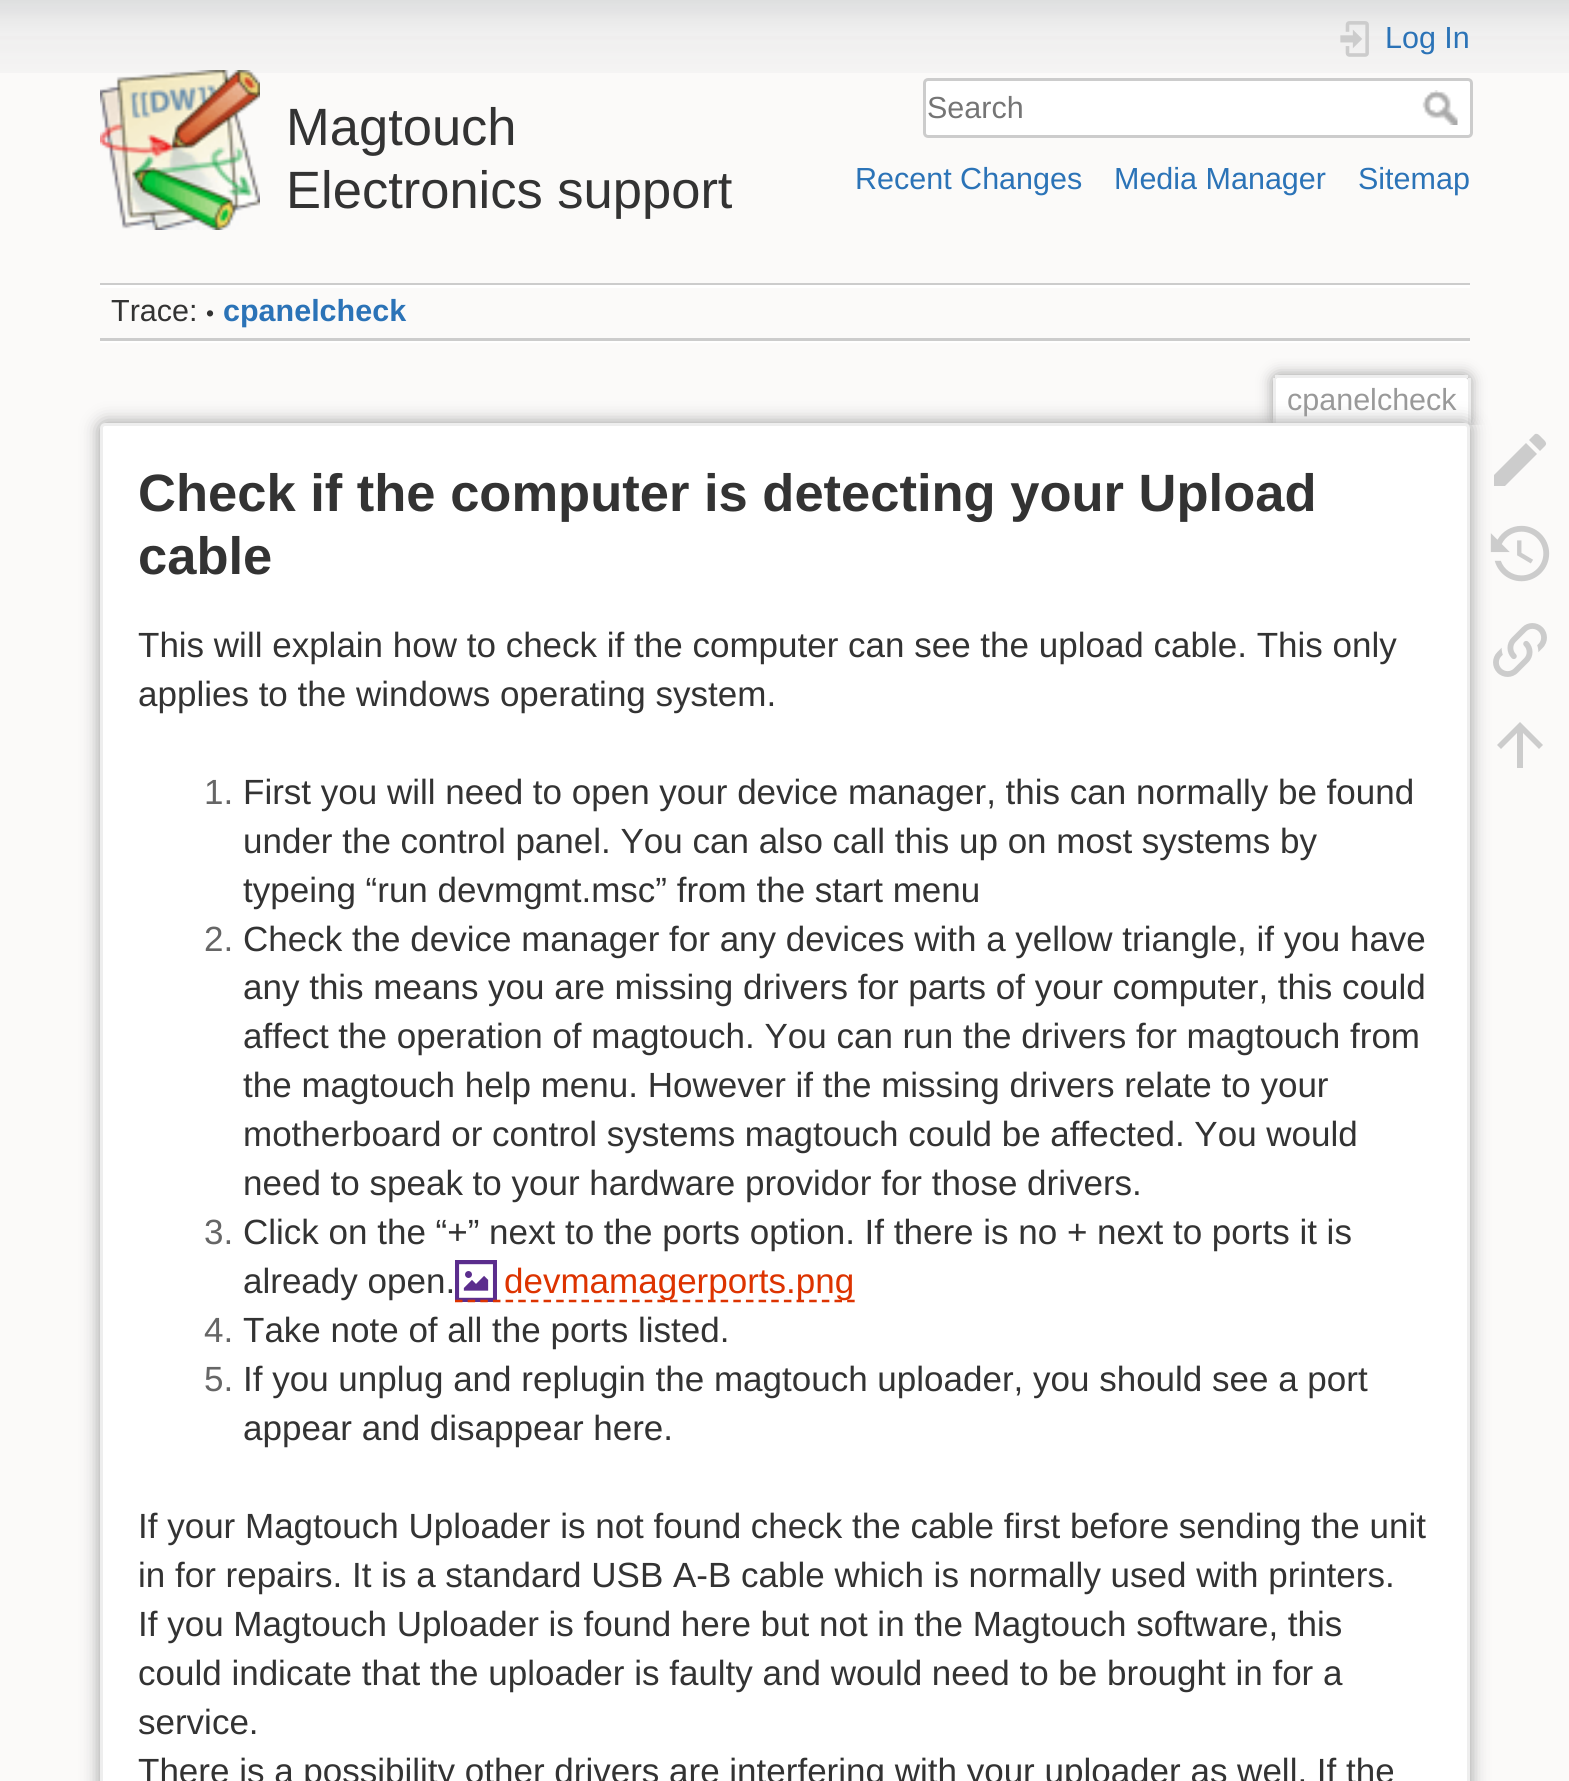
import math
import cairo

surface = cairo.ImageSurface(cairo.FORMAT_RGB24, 1569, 1781)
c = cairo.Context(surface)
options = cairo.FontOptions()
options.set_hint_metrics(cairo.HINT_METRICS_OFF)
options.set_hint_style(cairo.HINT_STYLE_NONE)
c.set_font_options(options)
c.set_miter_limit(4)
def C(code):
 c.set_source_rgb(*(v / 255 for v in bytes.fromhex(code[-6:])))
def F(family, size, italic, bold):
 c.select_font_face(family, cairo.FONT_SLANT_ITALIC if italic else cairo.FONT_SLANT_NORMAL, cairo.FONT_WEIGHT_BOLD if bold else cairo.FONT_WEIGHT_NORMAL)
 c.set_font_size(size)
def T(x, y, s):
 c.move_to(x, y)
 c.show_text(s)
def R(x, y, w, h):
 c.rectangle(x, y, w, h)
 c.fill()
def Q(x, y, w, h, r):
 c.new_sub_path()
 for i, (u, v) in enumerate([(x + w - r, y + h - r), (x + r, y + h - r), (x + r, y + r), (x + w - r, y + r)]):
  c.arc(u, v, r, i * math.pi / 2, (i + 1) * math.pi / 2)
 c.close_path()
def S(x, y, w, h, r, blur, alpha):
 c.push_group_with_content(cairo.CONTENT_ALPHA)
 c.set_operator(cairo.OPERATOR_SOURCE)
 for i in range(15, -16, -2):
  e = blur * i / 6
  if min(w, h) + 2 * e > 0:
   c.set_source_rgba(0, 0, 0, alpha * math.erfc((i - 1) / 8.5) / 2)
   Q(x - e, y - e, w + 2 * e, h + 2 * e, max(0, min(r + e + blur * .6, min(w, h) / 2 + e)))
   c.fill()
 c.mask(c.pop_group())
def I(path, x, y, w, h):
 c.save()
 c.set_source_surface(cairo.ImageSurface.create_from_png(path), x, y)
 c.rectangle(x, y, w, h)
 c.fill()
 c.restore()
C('fbfaf9')
c.paint()
I('1.png',0,0,1569,73)
I('2.png',100,70,160,160)
F('Liberation Sans',52.5,0,0)
C('333333')
T(286,145,'Magtouch')
T(286,208,'Electronics support')
I('3.png',1340,21,29,36)
F('Liberation Sans',30.5,0,0)
C('2b73b7')
T(1385,48,'Log In')
C('ffffff')
Q(924.5,79.5,547,57,3.5)
c.fill_preserve()
C('cccccc')
c.set_line_width(3)
c.stroke()
C('757575')
T(927,118,'Search')
I('4.png',1422,90,36,35)
C('2b73b7')
T(855,189,'Recent Changes')
T(1114,189,'Media Manager')
T(1358,189,'Sitemap')
C('cccccc')
R(100,283,1370,2)
C('ffffff')
R(100,341,1370,2)
R(100,285,1370,3)
C('cccccc')
R(100,338,1370,3)
C('333333')
T(111,321,'Trace:')
F('Liberation Sans',23,0,0)
T(206,321,'•')
F('Liberation Sans',30.5,0,1)
C('2b73b7')
T(223,321,'cpanelcheck')
c.save()
c.rectangle(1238,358,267,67)
c.clip()
C('999999')
S(1273,375,197,50,5,7.5,1)
c.restore()
C('ffffff')
c.new_path()
c.move_to(1277.5,378)
c.line_to(1465.5,378)
c.curve_to(1467,378,1468,379,1468,380.5)
c.line_to(1468,425)
c.line_to(1275,425)
c.line_to(1275,380.5)
c.curve_to(1275,379,1276,378,1277.5,378)
c.close_path()
c.fill()
C('eeeeee')
R(1275,375,193,3)
R(1468,378,3,47)
R(1273,378,3,47)
F('Liberation Sans',30.5,0,0)
C('999999')
T(1287,410,'cpanelcheck')
C('999999')
S(100,423,1370,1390,5,9,1)
C('ffffff')
Q(101.5,424.5,1367,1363,3.5)
c.fill_preserve()
C('eeeeee')
c.stroke()
F('Liberation Sans',52.5,0,1)
C('333333')
T(138,511,'Check if the computer is detecting your Upload')
T(138,574,'cable')
F('Liberation Sans',35,0,0)
T(138,657,'This will explain how to check if the computer can see the upload cable. This only')
T(138,706,'applies to the windows operating system.')
C('666666')
T(204,804,'1.')
C('333333')
T(243,804,'First you will need to open your device manager, this can normally be found')
T(243,853,'under the control panel. You can also call this up on most systems by')
T(243,902,'typeing “run devmgmt.msc” from the start menu')
C('666666')
T(204,951,'2.')
C('333333')
T(243,951,'Check the device manager for any devices with a yellow triangle, if you have')
T(243,999,'any this means you are missing drivers for parts of your computer, this could')
T(243,1048,'affect the operation of magtouch. You can run the drivers for magtouch from')
T(243,1097,'the magtouch help menu. However if the missing drivers relate to your')
T(243,1146,'motherboard or control systems magtouch could be affected. You would')
T(243,1195,'need to speak to your hardware providor for those drivers.')
C('666666')
T(204,1244,'3.')
C('333333')
T(243,1244,'Click on the “+” next to the ports option. If there is no + next to ports it is')
T(243,1293,'already open.')
I('5.png',455,1260,42,42)
c.new_path()
c.move_to(455,1301)
c.line_to(855,1301)
C('dd3300')
c.set_line_width(2.5)
c.set_dash([7.5,5.15])
c.stroke()
T(504,1293,'devmamagerports.png')
C('666666')
T(204,1342,'4.')
C('333333')
T(243,1342,'Take note of all the ports listed.')
C('666666')
T(204,1391,'5.')
C('333333')
T(243,1391,'If you unplug and replugin the magtouch uploader, you should see a port')
T(243,1440,'appear and disappear here.')
T(138,1538,'If your Magtouch Uploader is not found check the cable first before sending the unit')
T(138,1587,'in for repairs. It is a standard USB A-B cable which is normally used with printers.')
T(138,1636,'If you Magtouch Uploader is found here but not in the Magtouch software, this')
T(138,1685,'could indicate that the uploader is faulty and would need to be brought in for a')
T(138,1734,'service.')
T(138,1783,'There is a possibility other drivers are interfering with your uploader as well. If the')
C('cccccc')
c.new_path()
c.move_to(1545,446)
c.curve_to(1548,443,1544,440,1542,438)
c.curve_to(1540,436,1538,433,1535,434)
c.line_to(1529,440)
c.line_to(1540,451)
c.move_to(1494,475)
c.line_to(1494,486)
c.line_to(1505,486)
c.line_to(1537,454)
c.line_to(1526,443)
c.close_path()
c.fill()
I('6.png',1490,525,60,57)
I('7.png',1493,623,54,54)
c.new_path()
c.move_to(1523,768)
c.line_to(1517,768)
c.line_to(1517,733)
c.line_to(1501,749)
c.line_to(1497,745)
c.line_to(1520,722)
c.line_to(1543,745)
c.line_to(1539,749)
c.line_to(1523,733)
c.close_path()
c.fill()
surface.write_to_png('o.png')
